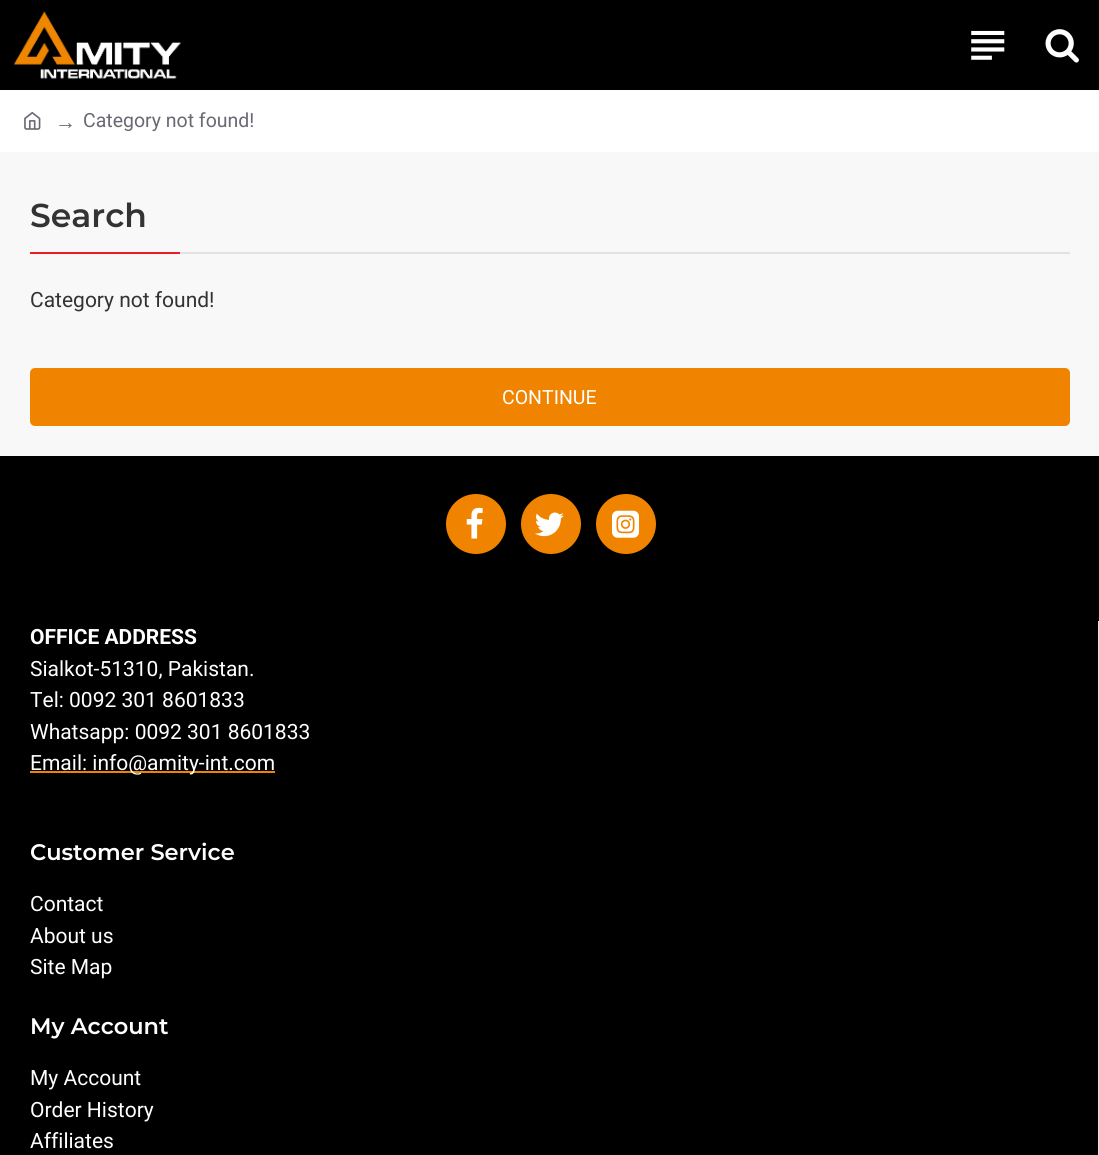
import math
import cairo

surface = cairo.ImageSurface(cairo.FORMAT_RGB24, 1099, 1155)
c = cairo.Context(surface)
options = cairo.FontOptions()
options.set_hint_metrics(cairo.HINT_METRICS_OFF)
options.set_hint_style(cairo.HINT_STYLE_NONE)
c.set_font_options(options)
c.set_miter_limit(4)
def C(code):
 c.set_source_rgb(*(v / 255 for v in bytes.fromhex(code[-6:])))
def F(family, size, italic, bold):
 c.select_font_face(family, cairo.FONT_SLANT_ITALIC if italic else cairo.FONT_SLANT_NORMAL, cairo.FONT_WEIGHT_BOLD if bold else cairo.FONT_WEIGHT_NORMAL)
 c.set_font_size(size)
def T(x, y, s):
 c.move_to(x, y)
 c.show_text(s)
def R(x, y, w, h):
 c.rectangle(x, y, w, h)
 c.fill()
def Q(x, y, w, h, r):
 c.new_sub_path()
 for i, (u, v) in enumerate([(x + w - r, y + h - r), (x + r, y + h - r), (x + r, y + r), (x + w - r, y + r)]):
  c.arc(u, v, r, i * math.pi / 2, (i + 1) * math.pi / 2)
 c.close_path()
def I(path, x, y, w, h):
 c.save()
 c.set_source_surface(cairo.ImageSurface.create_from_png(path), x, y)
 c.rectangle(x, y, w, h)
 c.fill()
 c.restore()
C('f8f8f8')
c.paint()
C('000000')
R(0,0,1099,90)
I('1.png',13,11,169,68)
I('2.png',971,30,34,30)
I('3.png',1045,29,34,34)
C('ffffff')
R(0,90,1099,62)
I('4.png',24,112,17,18)
F('Liberation Serif',21,0,0)
C('696973')
T(55,129,'→')
F('Roboto',19.5,0,0)
T(83,127,'Category not found!')
C('e2e2e2')
R(180,252,890,2)
F('Montserrat SemiBold',33,0,0)
C('333333')
T(30,227,'Search')
C('ed1c24')
R(30,252,150,2)
F('Roboto',21,0,0)
C('333333')
T(30,307,'Category not found!')
C('f08400')
Q(30,368,1040,58,5)
c.fill()
F('Roboto',19.5,0,0)
C('ffffff')
T(502,404,'CONTINUE')
C('000000')
R(0,456,1099,699)
C('f08400')
c.new_path()
c.arc(476,524,30,0,2 * math.pi)
c.fill()
I('5.png',466,507,17,32)
c.arc(551,524,30,0,2 * math.pi)
c.fill()
I('6.png',535,512,29,25)
c.arc(626,524,30,0,2 * math.pi)
c.fill()
I('7.png',612,510,27,28)
C('e2e2e2')
R(1098,621,1,534)
F('Roboto',21,0,1)
C('ffffff')
T(30,644,'OFFICE ADDRESS')
F('Roboto',21,0,0)
T(30,676,'Sialkot-51310, Pakistan.')
T(30,707,'Tel: 0092 301 8601833')
T(30,739,'Whatsapp: 0092 301 8601833')
C('f08400')
R(30,771,245,2)
C('ffffff')
T(30,770,'Email: info@amity-int.com')
F('Montserrat SemiBold',22.5,0,0)
T(30,860,'Customer Service')
F('Roboto',21,0,0)
T(30,911,'Contact')
T(30,943,'About us')
T(30,974,'Site Map')
F('Montserrat SemiBold',22.5,0,0)
T(30,1034,'My Account')
F('Roboto',21,0,0)
T(30,1085,'My Account')
T(30,1117,'Order History')
T(30,1148,'Affiliates')
surface.write_to_png('o.png')
